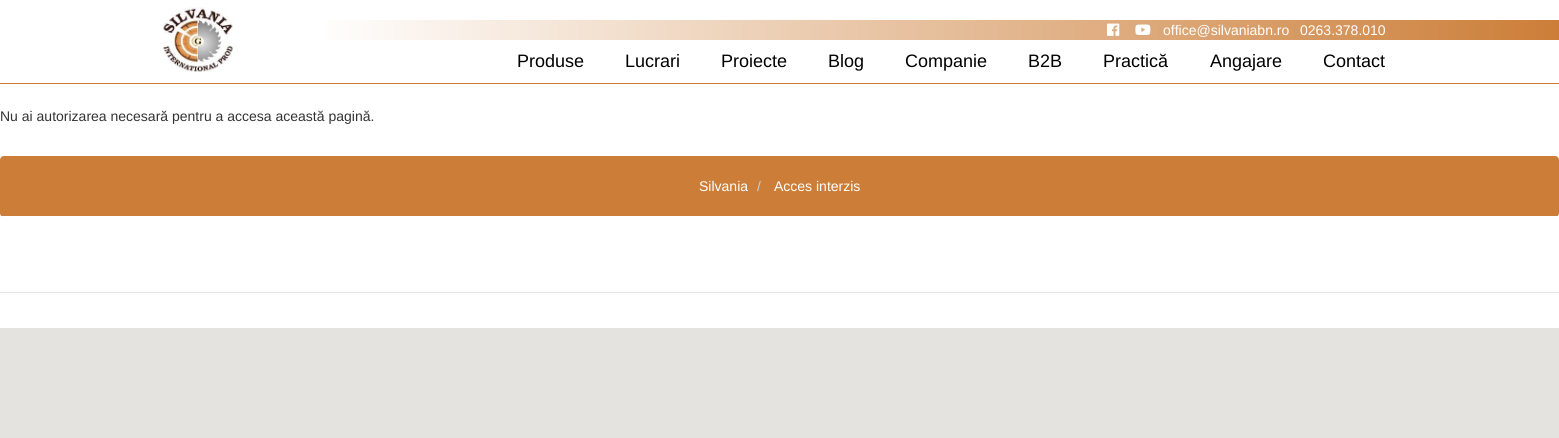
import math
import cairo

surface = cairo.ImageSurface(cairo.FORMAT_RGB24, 1559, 438)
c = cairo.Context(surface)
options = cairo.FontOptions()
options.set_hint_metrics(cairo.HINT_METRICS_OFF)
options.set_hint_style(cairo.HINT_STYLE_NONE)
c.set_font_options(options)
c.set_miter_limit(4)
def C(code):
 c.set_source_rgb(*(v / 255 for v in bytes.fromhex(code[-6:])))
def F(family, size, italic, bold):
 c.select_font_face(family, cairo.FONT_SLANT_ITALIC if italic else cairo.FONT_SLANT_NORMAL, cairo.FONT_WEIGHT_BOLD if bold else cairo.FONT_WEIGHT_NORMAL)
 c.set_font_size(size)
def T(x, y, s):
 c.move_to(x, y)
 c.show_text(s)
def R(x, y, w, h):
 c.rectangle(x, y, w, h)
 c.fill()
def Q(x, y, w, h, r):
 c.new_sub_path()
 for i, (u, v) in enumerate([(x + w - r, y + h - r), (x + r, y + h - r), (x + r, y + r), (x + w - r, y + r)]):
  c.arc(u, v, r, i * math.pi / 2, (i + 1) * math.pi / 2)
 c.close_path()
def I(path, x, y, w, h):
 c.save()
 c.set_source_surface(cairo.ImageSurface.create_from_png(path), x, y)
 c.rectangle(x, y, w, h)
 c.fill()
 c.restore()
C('ffffff')
c.paint()
I('1.png',163,7,70,65)
gradient = cairo.LinearGradient(0,30,1559,30)
gradient.add_color_stop_rgba(0,1,1,1,1)
gradient.add_color_stop_rgba(.2,1,1,1,1)
gradient.add_color_stop_rgba(1,0.8,0.494,0.22,1)
c.set_source(gradient)
R(327,20,1232,20)
I('2.png',1107,23,13,13)
I('3.png',1135,24,16,11)
F('Liberation Sans',14,0,0)
C('ffffff')
T(1163,35,'office@silvaniabn.ro')
T(1300,35,'0263.378.010')
C('cc7e38')
R(0,83,1559,1)
F('Liberation Sans',18,0,0)
C('000000')
T(517,67,'Produse')
T(625,67,'Lucrari')
T(721,67,'Proiecte')
T(828,67,'Blog')
T(905,67,'Companie')
T(1028,67,'B2B')
T(1103,67,'Practică')
T(1210,67,'Angajare')
T(1323,67,'Contact')
F('Liberation Sans',14,0,0)
C('333333')
T(0,121,'Nu ai autorizarea necesară pentru a accesa această pagină.')
C('cc7e38')
Q(0,156,1559,61,4)
c.fill()
C('ffffff')
R(2,216,1555,1)
T(699,191,'Silvania')
C('cccccc')
T(757,191,'/')
C('ffffff')
T(774,191,'Acces interzis')
C('e5e5e5')
R(0,292,1559,1)
C('e5e3df')
R(0,328,1559,110)
surface.write_to_png('o.png')
